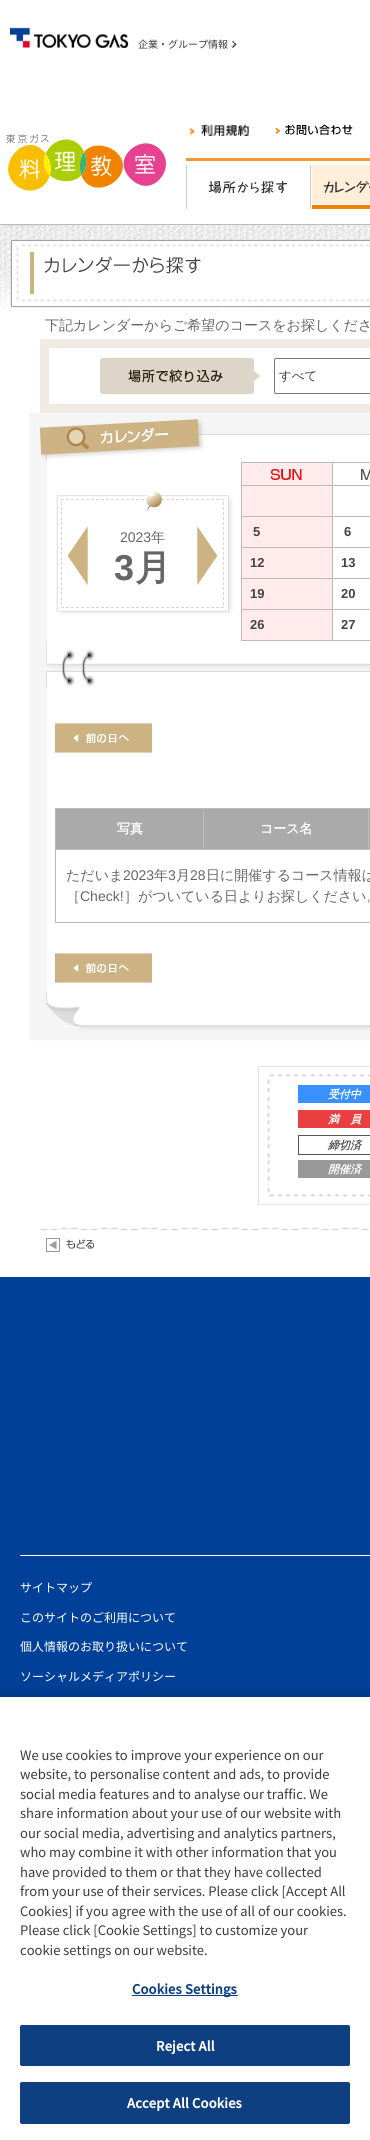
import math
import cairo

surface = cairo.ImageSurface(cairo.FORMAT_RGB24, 370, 2140)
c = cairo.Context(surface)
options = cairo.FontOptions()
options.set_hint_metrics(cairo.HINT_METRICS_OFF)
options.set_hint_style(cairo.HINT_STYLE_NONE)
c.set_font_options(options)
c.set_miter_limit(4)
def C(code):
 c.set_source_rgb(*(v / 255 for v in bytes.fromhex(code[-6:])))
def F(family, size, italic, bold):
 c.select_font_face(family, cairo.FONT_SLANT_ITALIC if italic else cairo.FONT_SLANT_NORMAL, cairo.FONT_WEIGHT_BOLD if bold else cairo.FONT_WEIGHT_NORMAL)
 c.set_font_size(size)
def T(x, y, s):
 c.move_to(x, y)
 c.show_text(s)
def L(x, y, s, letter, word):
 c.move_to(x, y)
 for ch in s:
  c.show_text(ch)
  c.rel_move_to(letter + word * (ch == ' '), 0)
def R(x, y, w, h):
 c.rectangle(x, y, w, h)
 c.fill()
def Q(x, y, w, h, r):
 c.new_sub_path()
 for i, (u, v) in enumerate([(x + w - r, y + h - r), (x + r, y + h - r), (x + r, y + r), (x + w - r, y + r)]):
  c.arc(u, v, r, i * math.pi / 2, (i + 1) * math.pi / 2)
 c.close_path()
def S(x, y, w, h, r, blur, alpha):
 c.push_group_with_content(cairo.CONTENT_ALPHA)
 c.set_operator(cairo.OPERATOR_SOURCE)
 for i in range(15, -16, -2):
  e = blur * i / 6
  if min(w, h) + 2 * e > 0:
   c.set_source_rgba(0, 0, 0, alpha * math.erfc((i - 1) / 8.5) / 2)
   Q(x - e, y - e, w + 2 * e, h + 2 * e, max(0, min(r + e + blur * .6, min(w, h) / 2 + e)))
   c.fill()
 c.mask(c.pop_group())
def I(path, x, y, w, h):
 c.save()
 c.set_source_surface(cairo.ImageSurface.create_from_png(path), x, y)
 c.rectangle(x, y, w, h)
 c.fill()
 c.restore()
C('ffffff')
c.paint()
I('1.png',10,27,119,21)
F('Noto Sans JP',10,0,0)
C('3c3c3c')
T(138,48,'企業・グループ情報')
c.new_path()
c.move_to(233,41)
c.line_to(236.5,44.5)
c.line_to(235.5,45)
c.line_to(232,41.5)
c.close_path()
c.fill()
c.new_path()
c.move_to(235.5,43.5)
c.line_to(236.5,44.5)
c.line_to(233,48)
c.line_to(232,47)
c.close_path()
c.fill()
C('bbbbbb')
R(0,224,370,1)
I('2.png',189,124,60,12)
I('3.png',275,124,78,11)
I('4.png',6,134,160,57)
C('f39b33')
R(186,158,184,3)
I('5.png',186,165,125,44)
I('6.png',312,165,58,44)
I('7.png',0,225,370,86)
F('WenQuanYi Zen Hei Medium',14,0,0)
C('666666')
T(45,330,'下記カレンダーからご希望のコースをお探しくださ')
C('efebe3')
R(40,339,330,74)
C('ffffff')
R(49,348,321,56)
I('8.png',100,358,160,36)
Q(274.5,358.5,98,35,1.5)
C('767676')
c.set_line_width(1)
c.stroke()
F('WenQuanYi Zen Hei Medium',12.5,0,0)
C('3c3c3c')
T(279,380,'すべて')
C('f5f5f5')
R(29,413,18,580)
I('9.png',39,413,331,49)
I('10.png',56,495,37,120)
I('11.png',93,491,99,124)
F('Liberation Sans',14,0,0)
C('666666')
T(120,542,'2023')
F('WenQuanYi Zen Hei Medium',14,0,0)
T(151,542,'年')
F('Liberation Sans',36,0,1)
T(114,580,'3')
F('WenQuanYi Zen Hei',36,0,1)
T(135,580,'月')
I('12.png',192,495,41,120)
C('bbbbbb')
R(241,462,129,1)
R(241,640,129,1)
R(241,462,1,179)
I('13.png',242,463,90,22)
R(332,485,38,1)
R(332,516,38,1)
R(332,547,38,1)
R(332,578,38,1)
R(332,609,38,1)
R(332,609,1,32)
R(241,609,92,1)
R(332,578,1,32)
R(241,578,92,1)
R(332,547,1,32)
R(241,547,92,1)
R(332,516,1,32)
R(241,516,92,1)
R(332,485,1,32)
R(241,485,92,1)
R(332,462,1,24)
I('14.png',361,469,9,11)
C('ffebeb')
R(242,486,90,30)
R(242,517,90,30)
F('Liberation Sans',13,0,1)
C('444444')
T(253,536,'5')
T(344,536,'6')
C('ffebeb')
R(242,548,90,30)
C('444444')
T(250,567,'12')
T(341,567,'13')
C('ffebeb')
R(242,579,90,30)
C('444444')
T(250,598,'19')
T(341,598,'20')
C('ffebeb')
R(242,610,90,30)
C('444444')
T(250,629,'26')
T(341,629,'27')
I('15.png',46,641,324,46)
I('16.png',55,723,97,30)
C('aaaaaa')
R(56,809,147,40)
C('bbbbbb')
R(368,808,2,1)
R(55,849,315,1)
R(368,808,1,42)
R(203,808,166,1)
R(203,808,1,42)
R(55,808,149,1)
R(55,922,315,1)
R(55,849,1,74)
R(55,808,1,42)
F('WenQuanYi Zen Hei',13,0,1)
C('ffffff')
T(117,833,'写真')
C('aaaaaa')
R(204,809,164,40)
C('ffffff')
T(260,833,'コース名')
C('aaaaaa')
R(369,809,1,40)
F('WenQuanYi Zen Hei Medium',14,0,0)
C('666666')
T(66,880,'ただいま')
F('Liberation Sans',14,0,0)
T(123,880,'2023')
F('WenQuanYi Zen Hei Medium',14,0,0)
T(154,880,'年')
F('Liberation Sans',14,0,0)
T(168,880,'3')
F('WenQuanYi Zen Hei Medium',14,0,0)
T(176,880,'月')
F('Liberation Sans',14,0,0)
T(190,880,'28')
F('WenQuanYi Zen Hei Medium',14,0,0)
T(206,880,'日に開催するコース情報は')
T(66,901,'［')
F('Liberation Sans',14,0,0)
T(80,901,'Check!')
F('WenQuanYi Zen Hei Medium',14,0,0)
T(124,901,'］がついている日よりお探しください。')
I('16.png',55,953,97,30)
I('17.png',29,993,341,55)
I('18.png',258,1066,112,19)
I('19.png',258,1085,12,100)
C('3891ff')
R(298,1085,72,18)
F('WenQuanYi Zen Hei',11,1,1)
C('ffffff')
T(328,1098,'受付中')
C('e84040')
R(298,1110,72,18)
C('ffffff')
L(328,1123,'満員',11,0)
c.rectangle(298.5,1135.5,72,19)
C('555555')
c.stroke()
T(328,1149,'締切済')
C('999999')
R(298,1160,72,18)
C('ffffff')
T(328,1173,'開催済')
I('20.png',258,1185,112,20)
I('21.png',39,1227,331,4)
I('22.png',46,1238,48,14)
C('004098')
R(0,1277,370,420)
C('ffffff')
R(20,1555,350,1)
F('Noto Sans JP',12,0,0)
T(20,1592,'サイトマップ')
T(20,1622,'このサイトのご利用について')
T(20,1651,'個人情報のお取り扱いについて')
T(20,1681,'ソーシャルメディアポリシー')
C('000000')
S(0,1697,370,443,0,9,.2)
C('ffffff')
R(0,1697,370,443)
F('Noto Sans JP',13,0,0)
C('3c3c3c')
T(20,1760,'We use cookies to improve your experience on our')
T(20,1779,'website, to personalise content and ads, to provide')
T(20,1799,'social media features and to analyse our traffic. We')
T(20,1818,'share information about your use of our website with')
T(20,1838,'our social media, advertising and analytics partners,')
T(20,1857,'who may combine it with other information that you')
T(20,1877,'have provided to them or that they have collected')
T(20,1896,'from your use of their services. Please click [Accept All')
T(20,1916,'Cookies] if you agree with the use of all of our cookies.')
T(20,1935,'Please click [Cookie Settings] to customize your')
T(20,1955,'cookie settings on our website.')
C('0e3f81')
R(132,1995,106,1)
F('Noto Sans JP',13,0,1)
L(132,1994,'Cookies Settings',.1,0)
Q(20.5,2025.5,329,40,1.5)
c.fill_preserve()
c.stroke()
C('ffffff')
L(156,2051,'Reject All',.1,0)
C('0e3f81')
Q(20.5,2082.5,329,41,1.5)
c.fill_preserve()
c.stroke()
C('ffffff')
L(127,2108,'Accept All Cookies',.1,0)
surface.write_to_png('o.png')
